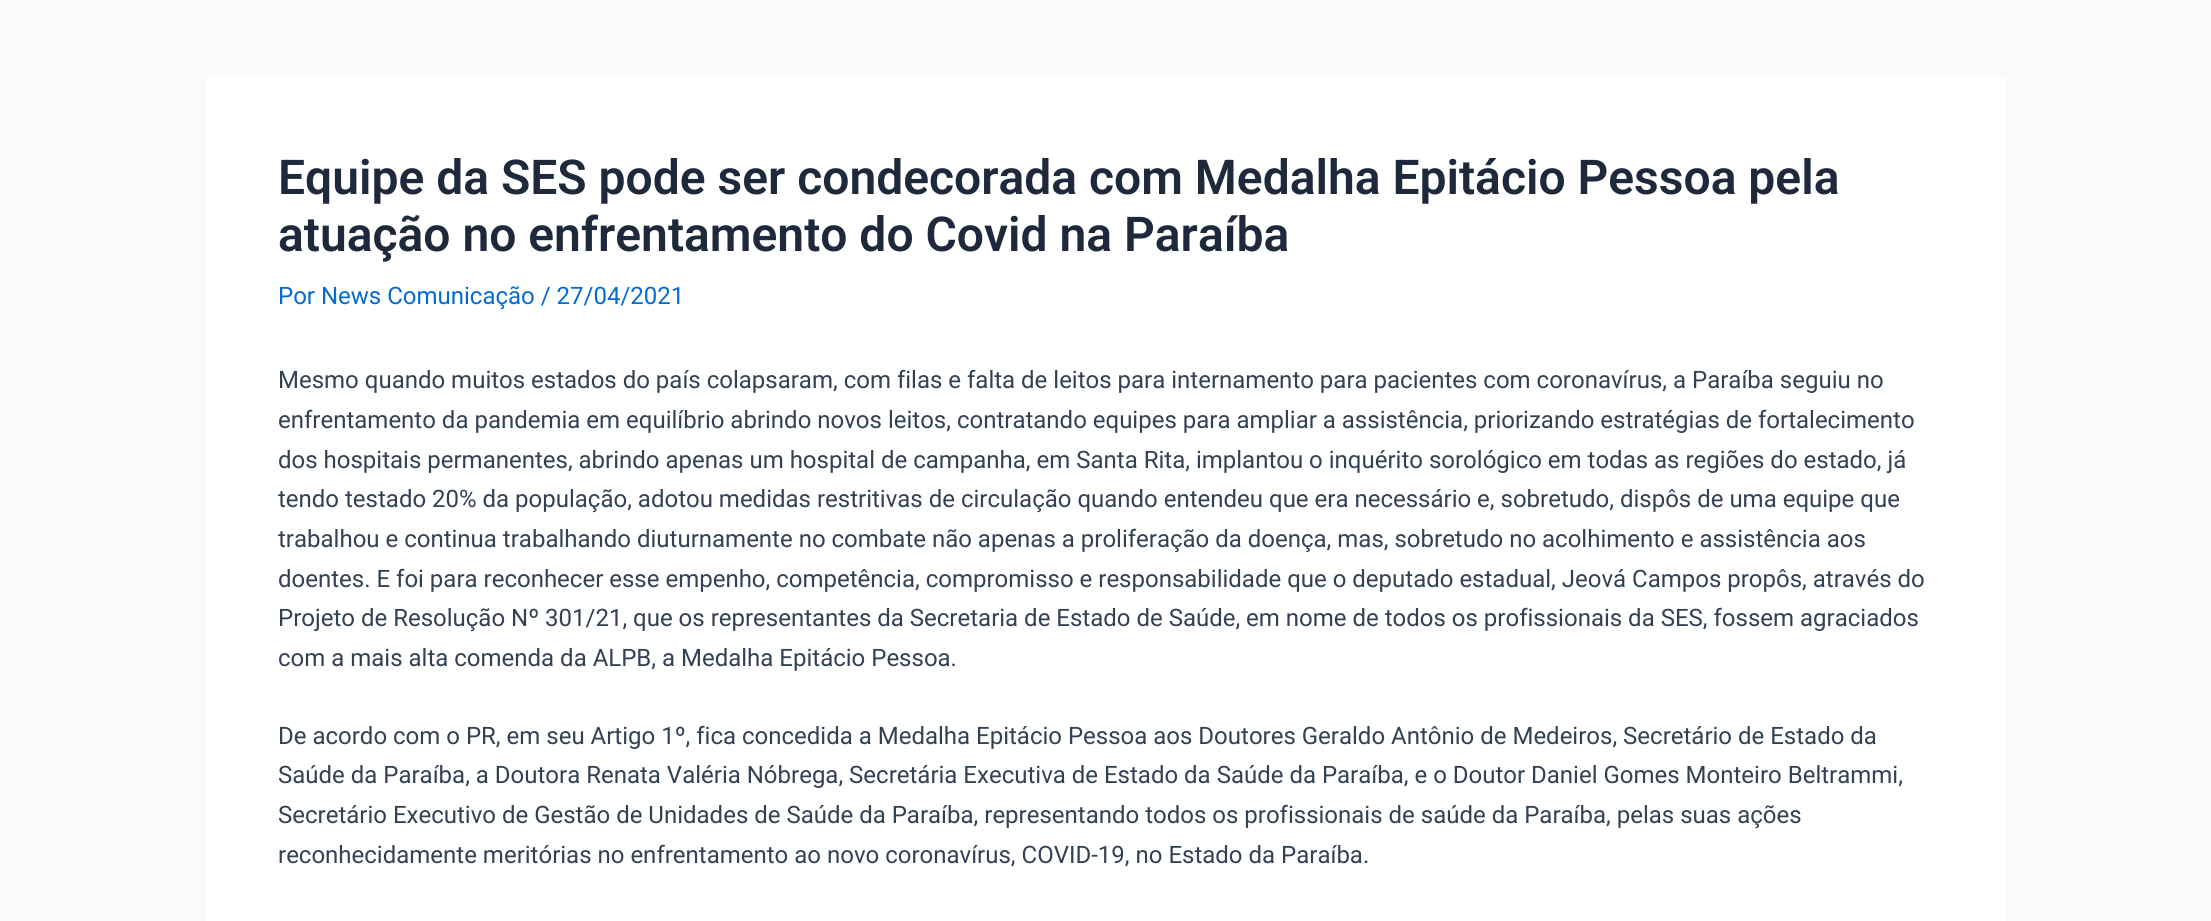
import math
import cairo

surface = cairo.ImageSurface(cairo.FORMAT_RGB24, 2211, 921)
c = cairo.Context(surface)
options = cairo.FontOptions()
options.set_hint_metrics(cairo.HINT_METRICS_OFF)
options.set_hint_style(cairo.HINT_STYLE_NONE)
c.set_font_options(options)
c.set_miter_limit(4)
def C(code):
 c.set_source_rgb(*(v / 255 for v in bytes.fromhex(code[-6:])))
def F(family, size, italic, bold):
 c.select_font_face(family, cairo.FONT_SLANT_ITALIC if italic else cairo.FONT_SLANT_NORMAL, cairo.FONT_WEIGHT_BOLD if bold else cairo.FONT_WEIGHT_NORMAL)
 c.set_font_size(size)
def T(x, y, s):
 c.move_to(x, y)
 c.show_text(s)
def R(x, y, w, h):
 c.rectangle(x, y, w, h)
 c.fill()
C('f9fafb')
c.paint()
C('ffffff')
R(206,77,1800,844)
F('Roboto SemiBold',48,0,0)
C('1e293b')
T(278,194,'Equipe da SES pode ser condecorada com Medalha Epitácio Pessoa pela')
T(278,251,'atuação no enfrentamento do Covid na Paraíba')
F('Roboto',24,0,0)
C('046bd2')
T(278,304,'Por News Comunicação / 27/04/2021')
C('334155')
T(278,388,'Mesmo quando muitos estados do país colapsaram, com filas e falta de leitos para internamento para pacientes com coronavírus, a Paraíba seguiu no')
T(278,428,'enfrentamento da pandemia em equilíbrio abrindo novos leitos, contratando equipes para ampliar a assistência, priorizando estratégias de fortalecimento')
T(278,468,'dos hospitais permanentes, abrindo apenas um hospital de campanha, em Santa Rita, implantou o inquérito sorológico em todas as regiões do estado, já')
T(278,507,'tendo testado 20% da população, adotou medidas restritivas de circulação quando entendeu que era necessário e, sobretudo, dispôs de uma equipe que')
T(278,547,'trabalhou e continua trabalhando diuturnamente no combate não apenas a proliferação da doença, mas, sobretudo no acolhimento e assistência aos')
T(278,587,'doentes. E foi para reconhecer esse empenho, competência, compromisso e responsabilidade que o deputado estadual, Jeová Campos propôs, através do')
T(278,626,'Projeto de Resolução Nº 301/21, que os representantes da Secretaria de Estado de Saúde, em nome de todos os profissionais da SES, fossem agraciados')
T(278,666,'com a mais alta comenda da ALPB, a Medalha Epitácio Pessoa.')
T(278,744,'De acordo com o PR, em seu Artigo 1º, fica concedida a Medalha Epitácio Pessoa aos Doutores Geraldo Antônio de Medeiros, Secretário de Estado da')
T(278,783,'Saúde da Paraíba, a Doutora Renata Valéria Nóbrega, Secretária Executiva de Estado da Saúde da Paraíba, e o Doutor Daniel Gomes Monteiro Beltrammi,')
T(278,823,'Secretário Executivo de Gestão de Unidades de Saúde da Paraíba, representando todos os profissionais de saúde da Paraíba, pelas suas ações')
T(278,863,'reconhecidamente meritórias no enfrentamento ao novo coronavírus, COVID-19, no Estado da Paraíba.')
surface.write_to_png('o.png')
